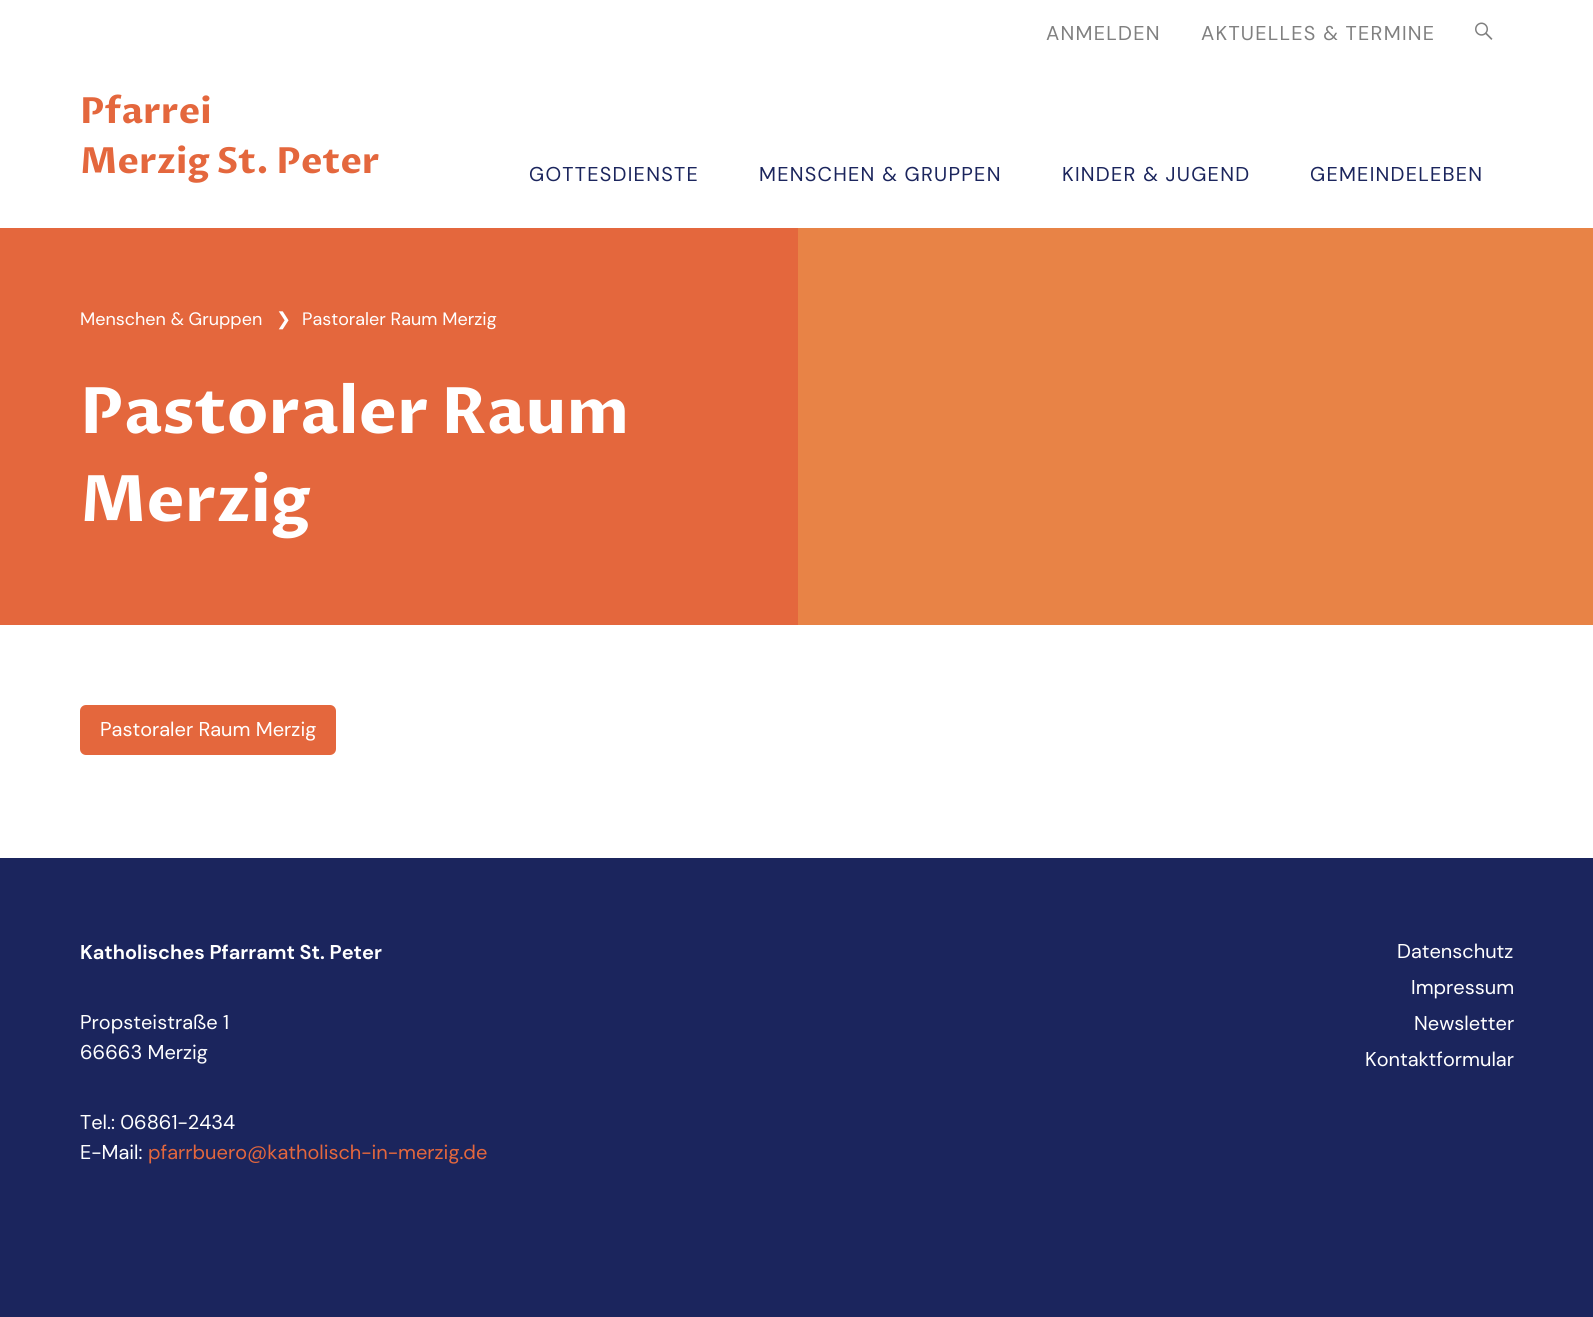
import math
import cairo

surface = cairo.ImageSurface(cairo.FORMAT_RGB24, 1593, 1317)
c = cairo.Context(surface)
options = cairo.FontOptions()
options.set_hint_metrics(cairo.HINT_METRICS_OFF)
options.set_hint_style(cairo.HINT_STYLE_NONE)
c.set_font_options(options)
c.set_miter_limit(4)
def C(code):
 c.set_source_rgb(*(v / 255 for v in bytes.fromhex(code[-6:])))
def F(family, size, italic, bold):
 c.select_font_face(family, cairo.FONT_SLANT_ITALIC if italic else cairo.FONT_SLANT_NORMAL, cairo.FONT_WEIGHT_BOLD if bold else cairo.FONT_WEIGHT_NORMAL)
 c.set_font_size(size)
def T(x, y, s):
 c.move_to(x, y)
 c.show_text(s)
def L(x, y, s, letter, word):
 c.move_to(x, y)
 for ch in s:
  c.show_text(ch)
  c.rel_move_to(letter + word * (ch == ' '), 0)
def R(x, y, w, h):
 c.rectangle(x, y, w, h)
 c.fill()
def Q(x, y, w, h, r):
 c.new_sub_path()
 for i, (u, v) in enumerate([(x + w - r, y + h - r), (x + r, y + h - r), (x + r, y + r), (x + w - r, y + r)]):
  c.arc(u, v, r, i * math.pi / 2, (i + 1) * math.pi / 2)
 c.close_path()
def I(path, x, y, w, h):
 c.save()
 c.set_source_surface(cairo.ImageSurface.create_from_png(path), x, y)
 c.rectangle(x, y, w, h)
 c.fill()
 c.restore()
C('ffffff')
c.paint()
F('DM Sans',20,0,0)
C('808080')
L(1046,40,'ANMELDEN',1.25,0)
L(1201,40,'AKTUELLES & TERMINE',1.25,0)
I('1.png',1475,22,18,18)
F('Proza Libre',36,0,1)
C('e4673d')
T(80,123,'Pfarrei')
T(80,173,'Merzig St. Peter')
F('DM Sans',20,0,0)
C('1b255d')
L(529,181,'GOTTESDIENSTE',1.25,0)
L(759,181,'MENSCHEN & GRUPPEN',1.25,0)
L(1062,181,'KINDER & JUGEND',1.25,0)
L(1310,181,'GEMEINDELEBEN',1.25,0)
C('e4673d')
R(0,228,798,397)
C('e88346')
R(798,228,795,397)
F('DM Sans',18,0,0)
C('ffffff')
T(80,325,'Menschen & Gruppen')
F('DejaVu Sans',18,0,0)
T(276,325,'❯')
F('DM Sans',18,0,0)
T(302,325,'Pastoraler Raum Merzig')
F('Proza Libre',64,0,1)
T(80,433,'Pastoraler Raum')
T(80,521,'Merzig')
C('e4673d')
Q(80,705,256,50,6)
c.fill()
F('DM Sans',20,0,0)
C('ffffff')
T(100,736,'Pastoraler Raum Merzig')
C('1b255d')
R(0,858,1593,459)
F('DM Sans',20,0,1)
C('ffffff')
T(80,959,'Katholisches Pfarramt St. Peter')
F('DM Sans',20,0,0)
T(80,1029,'Propsteistraße 1')
T(80,1059,'66663 Merzig')
T(80,1129,'Tel.: 06861-2434')
T(80,1159,'E-Mail:')
C('e4673d')
T(148,1159,'pfarrbuero@katholisch-in-merzig.de')
C('ffffff')
T(1397,958,'Datenschutz')
T(1411,994,'Impressum')
T(1414,1030,'Newsletter')
T(1365,1066,'Kontaktformular')
surface.write_to_png('o.png')
